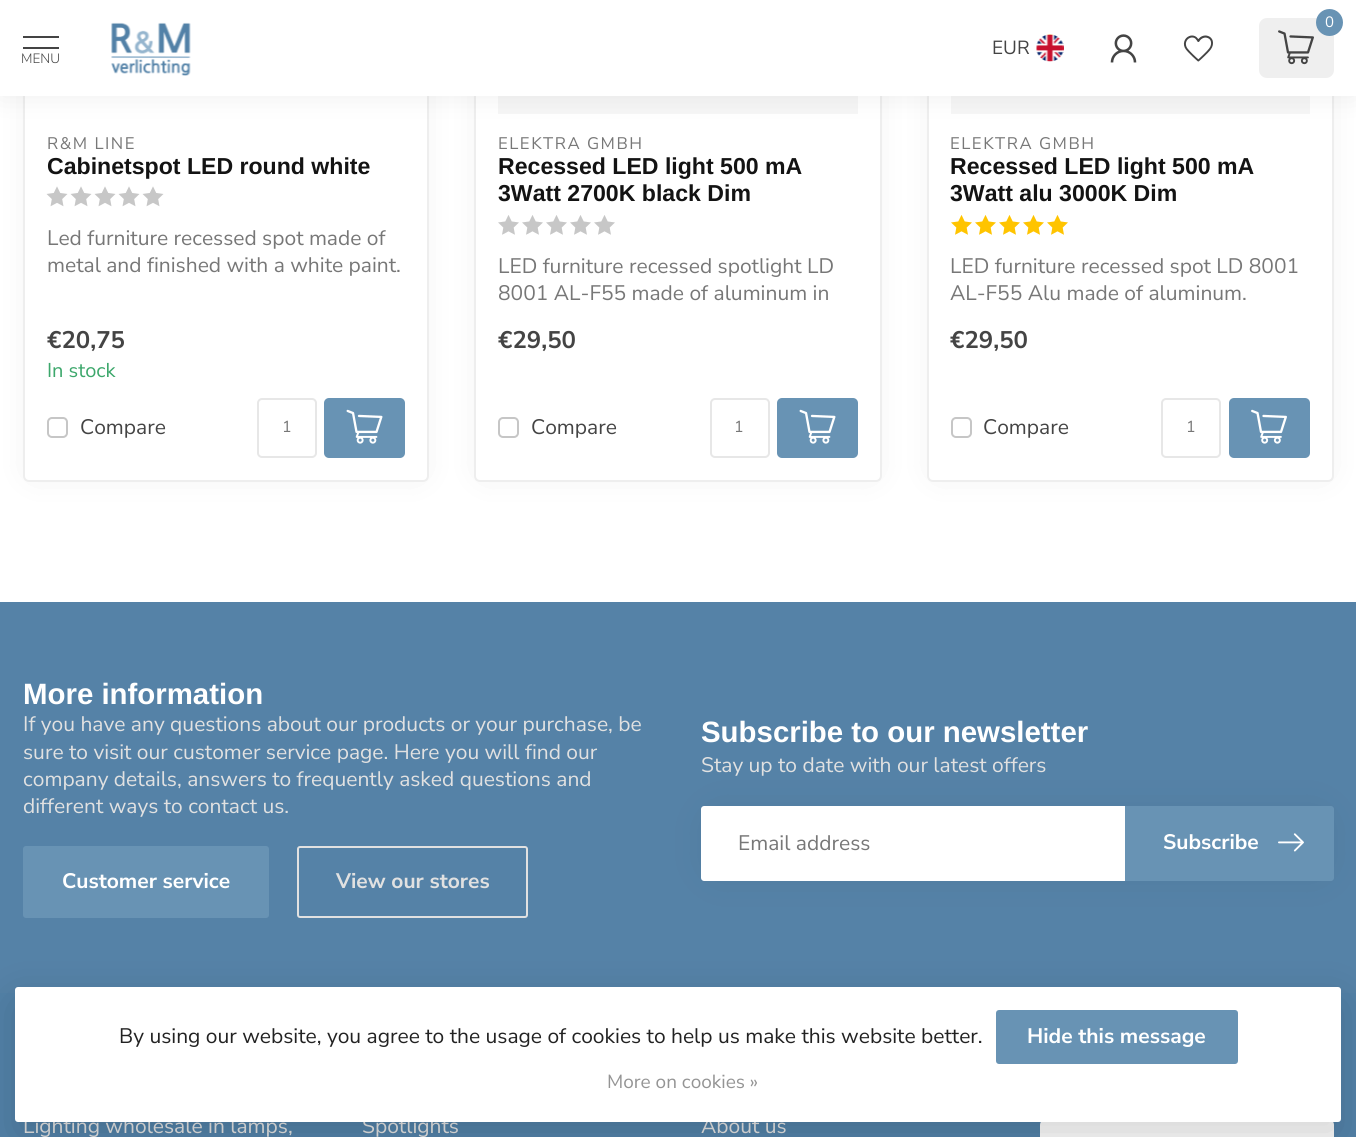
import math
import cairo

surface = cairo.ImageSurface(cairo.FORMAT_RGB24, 1356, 1137)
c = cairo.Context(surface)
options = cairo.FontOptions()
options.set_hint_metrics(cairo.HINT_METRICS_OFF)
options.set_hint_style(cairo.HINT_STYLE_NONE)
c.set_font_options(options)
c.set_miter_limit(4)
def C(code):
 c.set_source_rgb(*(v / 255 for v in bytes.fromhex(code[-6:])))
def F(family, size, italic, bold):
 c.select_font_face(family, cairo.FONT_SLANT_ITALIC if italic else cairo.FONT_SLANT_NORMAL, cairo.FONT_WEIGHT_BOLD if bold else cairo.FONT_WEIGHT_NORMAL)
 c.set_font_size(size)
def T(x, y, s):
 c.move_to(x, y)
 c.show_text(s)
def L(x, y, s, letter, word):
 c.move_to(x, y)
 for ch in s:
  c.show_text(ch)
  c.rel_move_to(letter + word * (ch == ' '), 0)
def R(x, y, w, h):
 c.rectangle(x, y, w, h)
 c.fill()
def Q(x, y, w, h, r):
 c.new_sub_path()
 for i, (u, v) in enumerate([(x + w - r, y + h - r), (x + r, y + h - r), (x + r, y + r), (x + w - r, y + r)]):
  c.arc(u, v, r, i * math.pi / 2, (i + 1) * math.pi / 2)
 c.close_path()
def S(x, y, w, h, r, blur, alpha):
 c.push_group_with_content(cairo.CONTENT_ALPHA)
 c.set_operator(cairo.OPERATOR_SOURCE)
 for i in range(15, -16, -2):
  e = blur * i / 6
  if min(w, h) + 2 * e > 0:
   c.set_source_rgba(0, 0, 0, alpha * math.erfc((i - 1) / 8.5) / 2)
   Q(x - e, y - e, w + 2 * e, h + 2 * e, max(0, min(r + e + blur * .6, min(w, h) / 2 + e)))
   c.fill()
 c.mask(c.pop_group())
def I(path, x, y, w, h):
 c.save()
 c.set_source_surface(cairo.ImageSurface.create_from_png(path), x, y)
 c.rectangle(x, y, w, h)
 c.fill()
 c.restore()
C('ffffff')
c.paint()
C('000000')
S(32,-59,388,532,0,19.5,.07)
C('ffffff')
Q(24,-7,404,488,5)
c.fill_preserve()
C('eeeeee')
c.stroke()
C('000000')
S(483,-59,390,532,0,19.5,.07)
C('ffffff')
Q(475,-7,406,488,5)
c.fill_preserve()
C('eeeeee')
c.stroke()
C('f6f6f6')
R(498,96,360,18)
C('000000')
S(936,-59,389,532,0,19.5,.07)
C('ffffff')
Q(928,-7,405,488,5)
c.fill_preserve()
C('eeeeee')
c.stroke()
C('f6f6f6')
R(951,96,359,18)
C('000000')
S(0,-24,1356,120,0,15,.07)
C('ffffff')
R(0,0,1356,96)
C('efefef')
Q(1259,18,75,60,8)
c.fill()
C('6893b4')
c.arc(1329.5,22.5,13.5,0,2 * math.pi)
c.fill()
F('Nunito Sans',15,0,0)
C('ffffff')
T(1325,27,'0')
I('1.png',1278,30,36,35)
F('Nunito Sans',19,0,0)
C('444444')
T(992,54,'EUR')
I('2.png',1036,34,28,28)
I('3.png',1110,34,27,29)
I('4.png',1183,35,30,27)
R(23,36,36,2)
R(23,47,36,2)
F('Nunito Sans Light',13.5,0,0)
T(21,63,'MENU')
I('5.png',111,22,80,54)
F('Nunito Sans',16.75,0,0)
C('777777')
L(47,149,'R&M LINE',1.5,0)
F('Arimo',23.1,0,1)
C('131313')
T(47,174,'Cabinetspot LED round white')
I('6.png',46,186,22,21)
I('6.png',70,186,22,21)
I('6.png',94,186,22,21)
I('6.png',118,186,22,21)
I('6.png',142,186,22,21)
F('Nunito Sans',21,0,0)
C('777777')
T(47,245,'Led furniture recessed spot made of')
T(47,272,'metal and finished with a white paint.')
F('Nunito Sans',24,0,1)
C('444444')
T(47,348,'€20,75')
F('Nunito Sans',20,0,0)
C('3ca76b')
T(47,377,'In stock')
Q(48,418,19,19,4)
C('c6c6c6')
c.stroke()
F('Nunito Sans',21,0,0)
C('444444')
T(80,434,'Compare')
Q(258,399,58,58,4)
C('e7e7e7')
c.stroke()
F('Nunito Sans',16,0,0)
C('777777')
T(282,432,'1')
C('6893b4')
Q(324,398,81,60,5)
c.fill()
I('7.png',346,409,37,35)
F('Nunito Sans',16.75,0,0)
C('777777')
L(498,149,'ELEKTRA GMBH',1.5,0)
F('Arimo',23.1,0,1)
C('131313')
T(498,174,'Recessed LED light 500 mA')
T(498,201,'3Watt 2700K black Dim')
I('8.png',498,215,21,20)
I('8.png',522,215,21,20)
I('8.png',546,215,21,20)
I('8.png',570,215,21,20)
I('8.png',594,215,21,20)
F('Nunito Sans',21,0,0)
C('777777')
T(498,273,'LED furniture recessed spotlight LD')
T(498,300,'8001 AL-F55 made of aluminum in')
F('Nunito Sans',24,0,1)
C('444444')
T(498,348,'€29,50')
Q(499,418,19,19,4)
C('c6c6c6')
c.stroke()
F('Nunito Sans',21,0,0)
C('444444')
T(531,434,'Compare')
Q(711,399,58,58,4)
C('e7e7e7')
c.stroke()
F('Nunito Sans',16,0,0)
C('777777')
T(734,432,'1')
C('6893b4')
Q(777,398,81,60,5)
c.fill()
I('7.png',799,409,37,35)
F('Nunito Sans',16.75,0,0)
C('777777')
L(950,149,'ELEKTRA GMBH',1.5,0)
F('Arimo',23.1,0,1)
C('131313')
T(950,174,'Recessed LED light 500 mA')
T(950,201,'3Watt alu 3000K Dim')
I('9.png',951,215,21,20)
I('9.png',975,215,21,20)
I('9.png',999,215,21,20)
I('9.png',1023,215,21,20)
I('9.png',1047,215,21,20)
F('Nunito Sans',21,0,0)
C('777777')
T(950,273,'LED furniture recessed spot LD 8001')
T(950,300,'AL-F55 Alu made of aluminum.')
F('Nunito Sans',24,0,1)
C('444444')
T(950,348,'€29,50')
Q(952,418,19,19,4)
C('c6c6c6')
c.stroke()
F('Nunito Sans',21,0,0)
C('444444')
T(983,434,'Compare')
Q(1162,399,58,58,4)
C('e7e7e7')
c.stroke()
F('Nunito Sans',16,0,0)
C('777777')
T(1186,432,'1')
C('6893b4')
Q(1229,398,81,60,5)
c.fill()
I('10.png',1251,409,36,35)
C('5281a7')
R(0,993,1356,144)
C('5582a7')
R(0,602,1356,391)
F('Arimo',29.4,0,1)
C('ffffff')
T(23,704,'More information')
F('Nunito Sans',21,0,0)
C('e1e1e1')
T(23,731,'If you have any questions about our products or your purchase, be')
T(23,759,'sure to visit our customer service page. Here you will find our')
T(23,786,'company details, answers to frequently asked questions and')
T(23,813,'different ways to contact us.')
C('6893b4')
Q(23,846,246,72,3)
c.fill()
F('Nunito Sans',21,0,1)
C('ffffff')
T(62,888,'Customer service')
Q(298,847,229,70,2)
C('e1e1e1')
c.stroke()
T(336,888,'View our stores')
F('Arimo',29.4,0,1)
C('ffffff')
T(701,742,'Subscribe to our newsletter')
C('000000')
S(716,821,603,45,0,22.5,.1)
F('Nunito Sans',21,0,0)
C('e1e1e1')
T(701,772,'Stay up to date with our latest offers')
C('ffffff')
c.new_path()
c.move_to(704,806)
c.line_to(1125,806)
c.line_to(1125,881)
c.line_to(704,881)
c.curve_to(702.5,881,701,879.5,701,878)
c.line_to(701,809)
c.curve_to(701,807.5,702.5,806,704,806)
c.close_path()
c.fill()
C('777777')
T(738,850,'Email address')
C('6893b4')
c.new_path()
c.move_to(1125,806)
c.line_to(1331,806)
c.curve_to(1332.5,806,1334,807.5,1334,809)
c.line_to(1334,878)
c.curve_to(1334,879.5,1332.5,881,1331,881)
c.line_to(1125,881)
c.close_path()
c.fill()
F('Nunito Sans',21,0,1)
C('ffffff')
T(1163,849,'Subscribe')
I('11.png',1278,833,26,19)
F('Nunito Sans',21,0,0)
C('e1e1e1')
T(23,1133,'Lighting wholesale in lamps,')
T(362,1133,'Spotlights')
T(701,1133,'About us')
C('fafafa')
Q(1040,1119,294,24,6)
c.fill()
C('000000')
S(15,1002,1326,135,3,22.5,.15)
C('ffffff')
Q(15,987,1326,135,3)
c.fill()
C('222222')
T(119,1043,'By using our website, you agree to the usage of cookies to help us make this website better.')
C('6893b4')
Q(996,1010,242,54,3)
c.fill()
F('Nunito Sans',21,0,1)
C('ffffff')
T(1027,1043,'Hide this message')
F('Nunito Sans',19,0,0)
C('949494')
T(607,1088,'More on cookies »')
surface.write_to_png('o.png')
